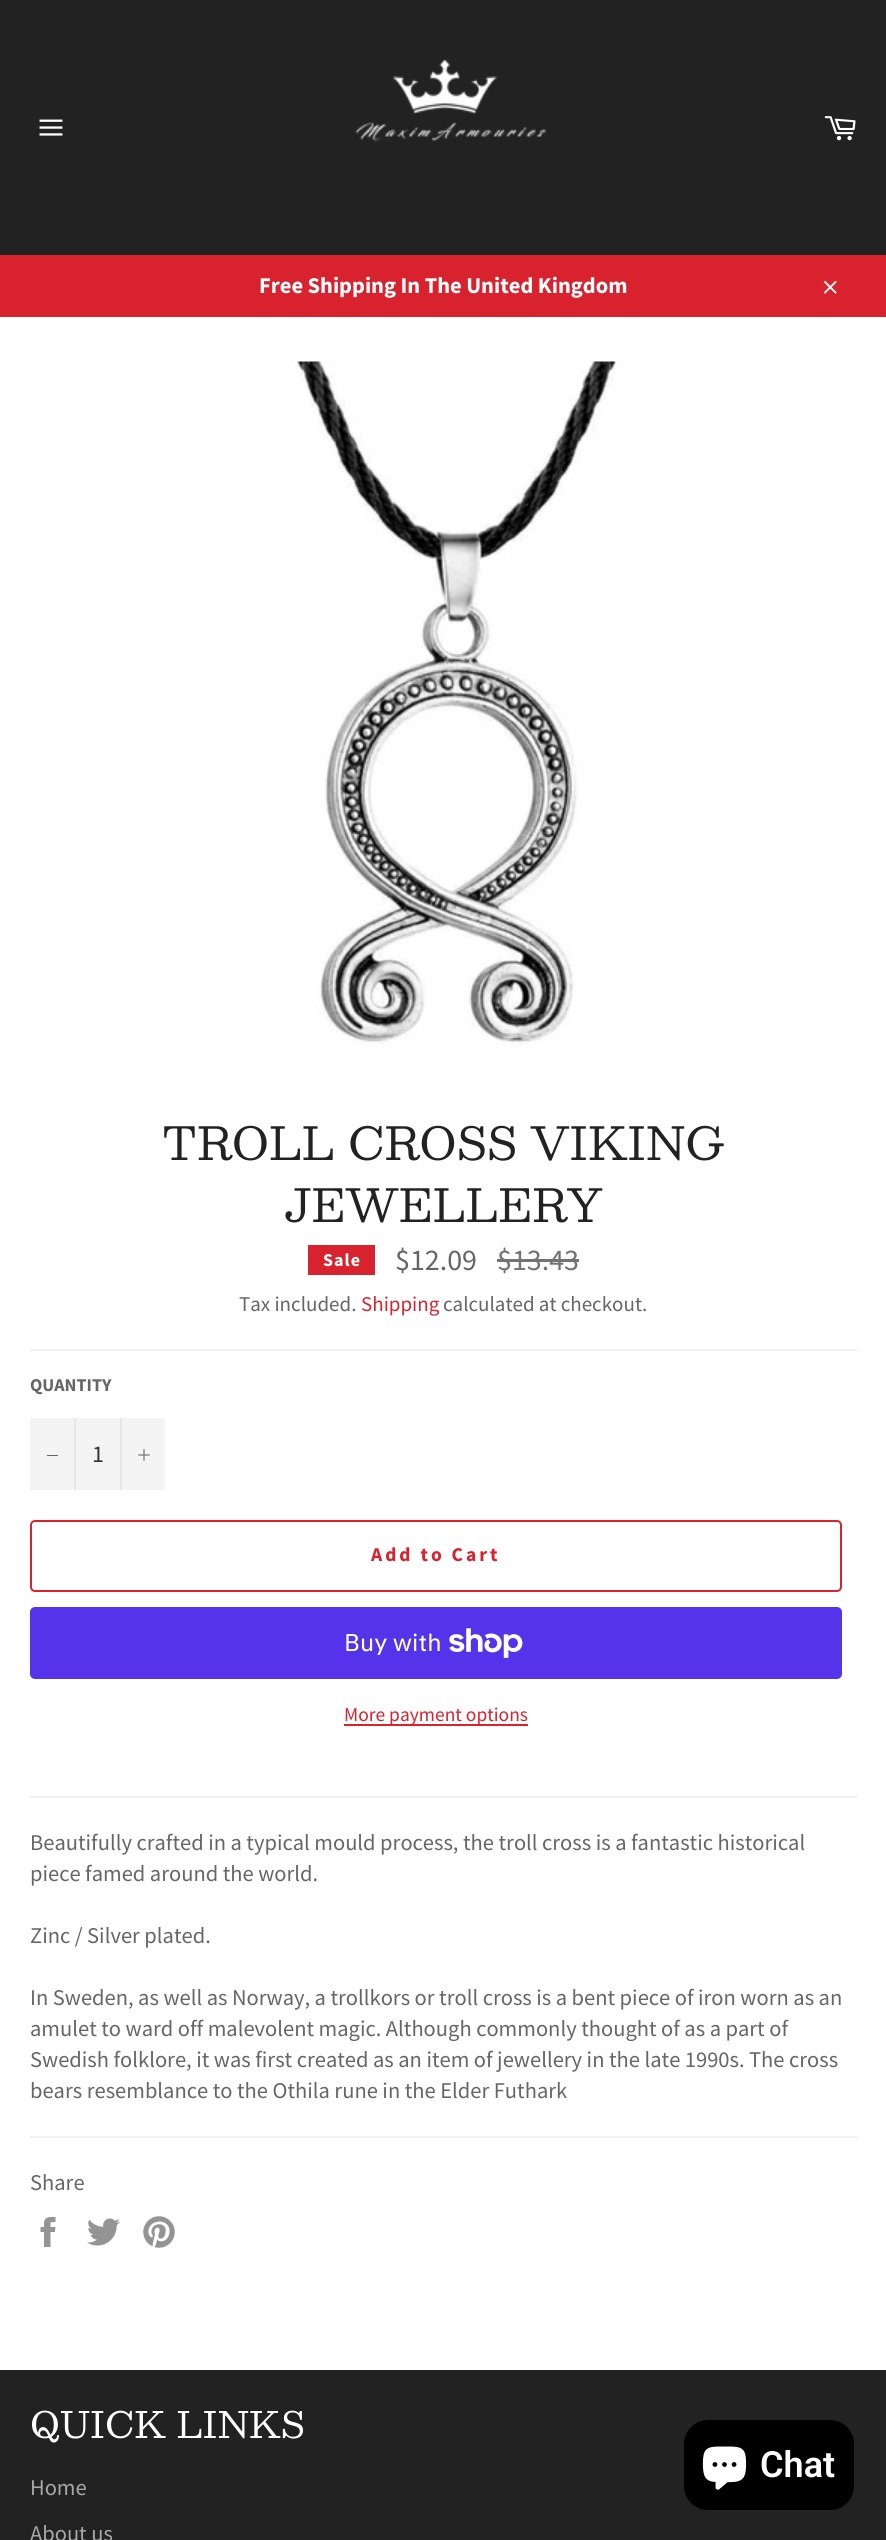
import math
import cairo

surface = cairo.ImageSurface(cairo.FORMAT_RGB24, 886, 2540)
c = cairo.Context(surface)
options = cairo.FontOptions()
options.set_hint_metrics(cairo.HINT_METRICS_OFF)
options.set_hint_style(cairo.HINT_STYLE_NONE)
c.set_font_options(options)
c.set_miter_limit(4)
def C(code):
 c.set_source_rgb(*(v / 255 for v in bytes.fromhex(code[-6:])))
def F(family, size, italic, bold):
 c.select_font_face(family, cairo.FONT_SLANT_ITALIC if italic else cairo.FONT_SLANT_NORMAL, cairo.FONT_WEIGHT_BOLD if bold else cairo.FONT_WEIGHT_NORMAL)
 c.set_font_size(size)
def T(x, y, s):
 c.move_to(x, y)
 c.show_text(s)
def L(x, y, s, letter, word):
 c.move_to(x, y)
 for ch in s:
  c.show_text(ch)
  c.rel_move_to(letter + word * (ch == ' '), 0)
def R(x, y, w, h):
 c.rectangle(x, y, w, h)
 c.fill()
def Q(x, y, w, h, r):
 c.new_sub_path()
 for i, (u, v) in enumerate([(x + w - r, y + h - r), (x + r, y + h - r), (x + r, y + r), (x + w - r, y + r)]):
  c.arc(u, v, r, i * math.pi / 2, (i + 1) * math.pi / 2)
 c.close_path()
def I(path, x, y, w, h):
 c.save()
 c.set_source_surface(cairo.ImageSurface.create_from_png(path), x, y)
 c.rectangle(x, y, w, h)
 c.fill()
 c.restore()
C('222222')
c.paint()
I('1.png',39,119,24,17)
I('2.png',355,59,192,83)
I('3.png',824,116,32,25)
C('d8232f')
R(0,255,886,62)
F('Source Sans Pro',22.5,0,1)
C('ffffff')
T(259,293,'Free Shipping In The United Kingdom')
I('4.png',823,280,14,14)
R(0,317,886,2053)
I('5.png',294,361,323,685)
F('Besley',45,0,0)
C('222222')
T(162,1160,'TROLL CROSS VIKING')
T(285,1222,'JEWELLERY')
C('d8232f')
R(308,1245,67,30)
F('Source Sans Pro',18,0,1)
C('ffffff')
L(323,1266,'Sale',1,0)
F('Source Sans Pro',30,0,0)
C('666666')
T(395,1270,'$12.09')
C('737373')
T(497,1270,'$13.43')
R(497,1259,82,3)
F('Source Sans Pro',21,0,0)
C('666666')
T(239,1311,'Tax included.')
C('d8232f')
T(361,1311,'Shipping')
C('666666')
T(443,1311,'calculated at checkout.')
C('f0f0f0')
R(30,1349,827,2)
F('Source Sans Pro',18,0,1)
C('666666')
T(30,1391,'QUANTITY')
C('f4f4f4')
R(30,1418,135,72)
C('e7e7e7')
R(74,1418,2,72)
C('666666')
R(47,1455,11,1)
F('Source Sans Pro',24,0,0)
C('333333')
T(92,1462,'1')
C('e7e7e7')
R(120,1418,2,72)
I('6.png',138,1449,12,12)
Q(31,1521,810,70,4)
C('d8232f')
c.stroke()
F('Source Sans Pro',19.5,0,1)
L(371,1561,'Add to Cart',3,0)
C('5433eb')
Q(30,1607,812,72,5)
c.fill()
F('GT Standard',24,0,0)
C('ffffff')
T(344,1651,'Buy with')
I('7.png',449,1628,74,30)
C('d8232f')
R(344,1724,184,2)
F('Source Sans Pro',19.5,0,0)
T(344,1721,'More payment options')
C('f0f0f0')
R(30,1796,827,2)
F('Source Sans Pro',22.5,0,0)
C('666666')
T(30,1850,'Beautifully crafted in a typical mould process, the troll cross is a fantastic historical')
T(30,1881,'piece famed around the world.')
T(30,1943,'Zinc / Silver plated.')
T(30,2005,'In Sweden, as well as Norway, a trollkors or troll cross is a bent piece of iron worn as an')
T(30,2036,'amulet to ward off malevolent magic. Although commonly thought of as a part of')
T(30,2067,'Swedish folklore, it was first created as an item of jewellery in the late 1990s. The cross')
T(30,2098,'bears resemblance to the Othila rune in the Elder Futhark')
C('f0f0f0')
R(30,2136,827,2)
C('666666')
T(30,2190,'Share')
I('8.png',40,2217,16,30)
I('9.png',87,2218,33,28)
I('10.png',143,2216,32,32)
F('Besley',36,0,0)
C('ffffff')
T(30,2438,'QUICK LINKS')
F('Source Sans Pro',22.5,0,0)
C('a7a7a7')
T(30,2495,'Home')
T(30,2541,'About us')
C('000000')
Q(684,2420,170,90,24)
c.fill()
I('11.png',702,2446,45,44)
F('Roboto SemiBold',36,0,0)
C('ffffff')
T(760,2477,'Chat')
surface.write_to_png('o.png')
